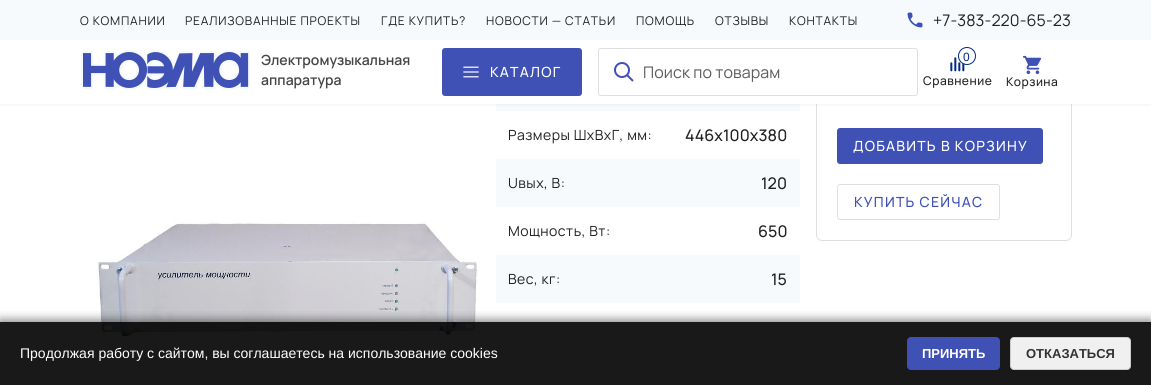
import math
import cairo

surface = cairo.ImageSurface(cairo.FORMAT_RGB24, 1151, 385)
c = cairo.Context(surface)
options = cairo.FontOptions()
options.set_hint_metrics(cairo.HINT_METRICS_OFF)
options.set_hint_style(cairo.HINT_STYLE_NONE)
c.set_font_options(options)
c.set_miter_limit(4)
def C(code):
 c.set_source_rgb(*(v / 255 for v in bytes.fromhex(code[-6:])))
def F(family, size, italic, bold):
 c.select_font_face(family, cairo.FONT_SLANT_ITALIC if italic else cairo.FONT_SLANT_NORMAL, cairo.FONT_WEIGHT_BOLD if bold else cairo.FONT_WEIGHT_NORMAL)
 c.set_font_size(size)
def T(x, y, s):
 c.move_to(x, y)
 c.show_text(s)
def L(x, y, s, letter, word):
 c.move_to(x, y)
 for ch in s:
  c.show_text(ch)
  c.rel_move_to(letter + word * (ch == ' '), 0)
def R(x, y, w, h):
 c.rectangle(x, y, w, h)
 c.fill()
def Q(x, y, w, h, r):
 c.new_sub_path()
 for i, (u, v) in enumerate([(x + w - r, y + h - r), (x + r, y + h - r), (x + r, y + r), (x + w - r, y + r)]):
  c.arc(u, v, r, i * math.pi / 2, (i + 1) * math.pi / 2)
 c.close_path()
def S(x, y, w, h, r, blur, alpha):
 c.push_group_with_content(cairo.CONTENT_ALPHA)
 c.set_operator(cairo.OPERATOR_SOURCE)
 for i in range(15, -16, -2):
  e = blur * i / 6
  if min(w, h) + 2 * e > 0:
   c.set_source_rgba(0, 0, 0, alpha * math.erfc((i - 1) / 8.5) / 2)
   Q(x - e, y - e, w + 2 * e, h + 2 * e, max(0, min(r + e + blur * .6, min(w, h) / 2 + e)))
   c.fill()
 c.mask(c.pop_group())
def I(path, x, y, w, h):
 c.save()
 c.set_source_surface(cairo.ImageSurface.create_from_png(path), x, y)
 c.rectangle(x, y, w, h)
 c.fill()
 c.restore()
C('ffffff')
c.paint()
C('f7fafc')
R(496,104,304,7)
Q(816.5,3.5,255,237,5.5)
C('dddfe0')
c.set_line_width(1)
c.stroke()
C('000000')
S(0,0,1151,104,0,2,.08)
C('ffffff')
R(0,40,1151,64)
C('f7fafc')
R(0,0,1151,40)
F('Manrope',12,0,0)
C('212121')
L(80,25,'О КОМПАНИИ',.8,0)
L(185,25,'РЕАЛИЗОВАННЫЕ ПРОЕКТЫ',.8,0)
L(381,25,'ГДЕ КУПИТЬ?',.8,0)
L(486,25,'НОВОСТИ — СТАТЬИ',.8,0)
L(636,25,'ПОМОЩЬ',.8,0)
L(715,25,'ОТЗЫВЫ',.8,0)
L(789,25,'КОНТАКТЫ',.8,0)
I('1.png',907,12,16,16)
F('Manrope',16,0,0)
L(933,26,'+7-383-220-65-23',.1,0)
I('2.png',81,50,169,40)
F('Manrope SemiBold',14,0,0)
C('454545')
T(261,65,'Электромузыкальная')
T(261,85,'аппаратура')
C('3f51b5')
Q(442,48,140,48,3)
c.fill()
I('3.png',463,66,16,12)
F('Manrope Medium',14,0,0)
C('ffffff')
L(490,77,'КАТАЛОГ',1.25,0)
Q(598.5,48.5,319,47,2.5)
C('dddfe0')
c.stroke()
I('4.png',614,62,20,20)
F('Manrope',16,0,0)
C('5c5c5c')
L(643,78,'Поиск по товарам',.1,0)
I('5.png',950,57,15,15)
C('ffffff')
c.arc(967,56,8.5,0,2 * math.pi)
c.fill_preserve()
C('002984')
c.stroke()
F('Liberation Sans',12,0,0)
T(963,61,'0')
F('Manrope Medium',12,0,0)
C('212121')
L(923,85,'Сравнение',.5,0)
I('6.png',1023,55,19,20)
L(1006,86,'Корзина',.5,0)
F('Manrope',14,0,0)
L(508,140,'Размеры ШхВхГ, мм:',.5,0)
F('Manrope Medium',16,0,0)
L(685,141,'446х100х380',.1,0)
C('f7fafc')
R(496,159,304,48)
F('Manrope',14,0,0)
C('212121')
L(508,188,'Uвых, В:',.5,0)
F('Manrope Medium',16,0,0)
L(761,189,'120',.1,0)
F('Manrope',14,0,0)
L(508,236,'Мощность, Вт:',.5,0)
F('Manrope Medium',16,0,0)
L(758,237,'650',.1,0)
C('f7fafc')
R(496,255,304,48)
F('Manrope',14,0,0)
C('212121')
L(508,284,'Вес, кг:',.5,0)
F('Manrope Medium',16,0,0)
L(771,285,'15',.1,0)
C('3f51b5')
Q(837,128,206,36,3)
c.fill()
F('Manrope Medium',14,0,0)
C('ffffff')
L(853,151,'ДОБАВИТЬ В КОРЗИНУ',1.25,0)
Q(837.5,184.5,162,35,2.5)
C('dddfe0')
c.stroke()
C('3f51b5')
L(854,207,'КУПИТЬ СЕЙЧАС',1.25,0)
I('7.png',96,221,382,116)
c.save()
c.rectangle(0,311,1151,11)
c.clip()
C('000000')
S(0,320,1151,63,0,5,.5)
c.restore()
c.set_source_rgba(0,0,0,0.9)
R(0,322,1151,63)
F('Liberation Sans',14,0,0)
C('ffffff')
T(20,358,'Продолжая работу с сайтом, вы соглашаетесь на использование cookies')
C('3f51b5')
Q(907,337,93,33,4)
c.fill()
F('Liberation Sans',13,0,1)
C('ffffff')
T(922,358,'ПРИНЯТЬ')
C('f0f0f0')
Q(1010.5,337.5,120,32,3.5)
c.fill_preserve()
C('cccccc')
c.stroke()
C('333333')
T(1026,358,'ОТКАЗАТЬСЯ')
surface.write_to_png('o.png')
